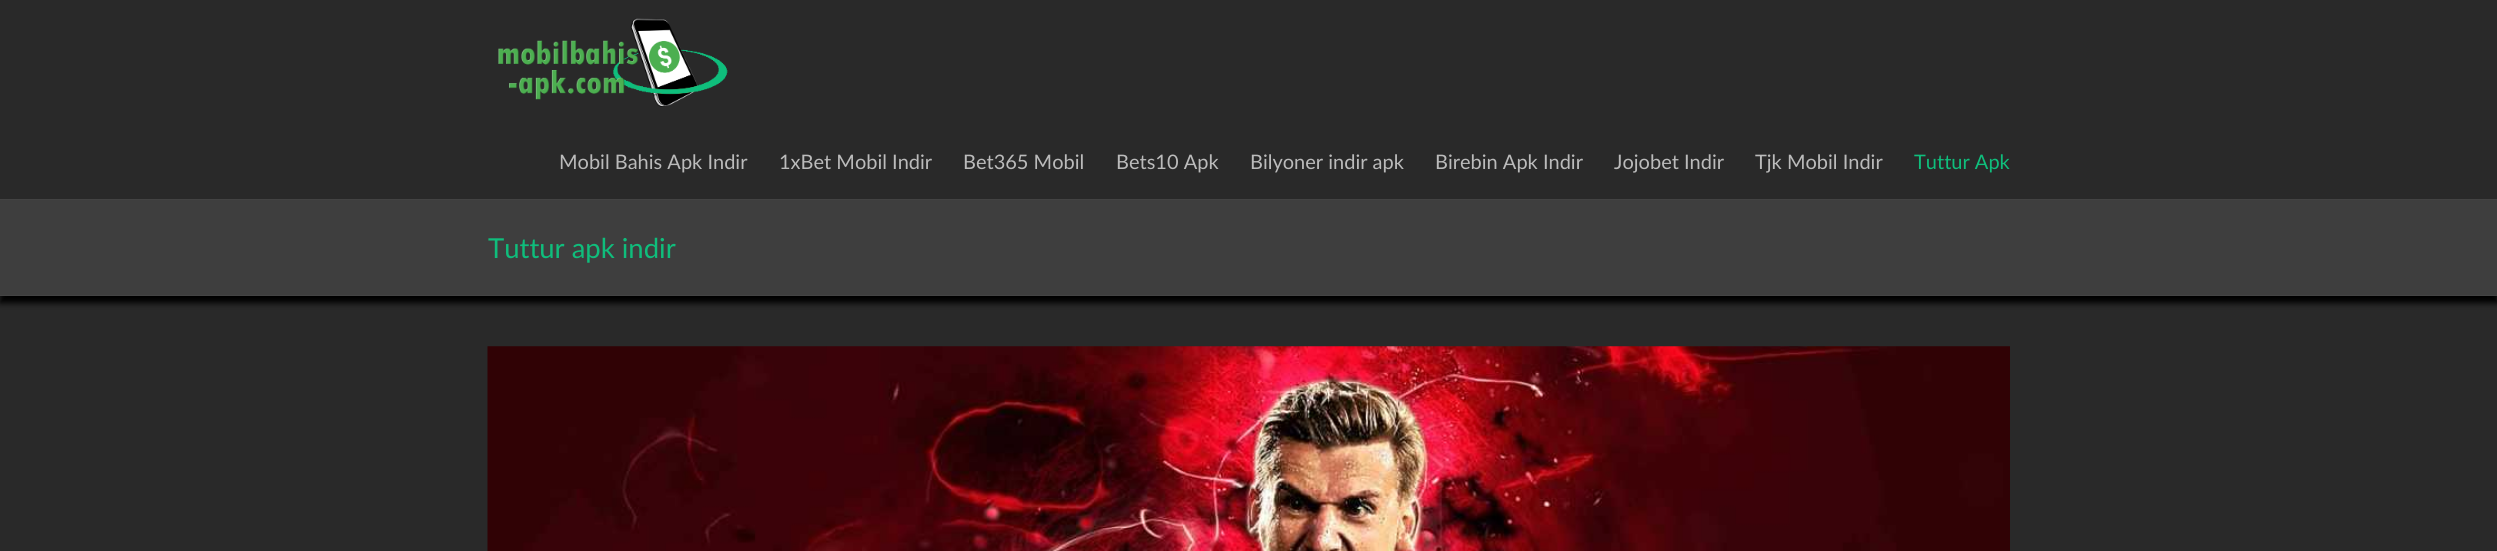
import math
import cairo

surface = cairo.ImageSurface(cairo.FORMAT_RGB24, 2497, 551)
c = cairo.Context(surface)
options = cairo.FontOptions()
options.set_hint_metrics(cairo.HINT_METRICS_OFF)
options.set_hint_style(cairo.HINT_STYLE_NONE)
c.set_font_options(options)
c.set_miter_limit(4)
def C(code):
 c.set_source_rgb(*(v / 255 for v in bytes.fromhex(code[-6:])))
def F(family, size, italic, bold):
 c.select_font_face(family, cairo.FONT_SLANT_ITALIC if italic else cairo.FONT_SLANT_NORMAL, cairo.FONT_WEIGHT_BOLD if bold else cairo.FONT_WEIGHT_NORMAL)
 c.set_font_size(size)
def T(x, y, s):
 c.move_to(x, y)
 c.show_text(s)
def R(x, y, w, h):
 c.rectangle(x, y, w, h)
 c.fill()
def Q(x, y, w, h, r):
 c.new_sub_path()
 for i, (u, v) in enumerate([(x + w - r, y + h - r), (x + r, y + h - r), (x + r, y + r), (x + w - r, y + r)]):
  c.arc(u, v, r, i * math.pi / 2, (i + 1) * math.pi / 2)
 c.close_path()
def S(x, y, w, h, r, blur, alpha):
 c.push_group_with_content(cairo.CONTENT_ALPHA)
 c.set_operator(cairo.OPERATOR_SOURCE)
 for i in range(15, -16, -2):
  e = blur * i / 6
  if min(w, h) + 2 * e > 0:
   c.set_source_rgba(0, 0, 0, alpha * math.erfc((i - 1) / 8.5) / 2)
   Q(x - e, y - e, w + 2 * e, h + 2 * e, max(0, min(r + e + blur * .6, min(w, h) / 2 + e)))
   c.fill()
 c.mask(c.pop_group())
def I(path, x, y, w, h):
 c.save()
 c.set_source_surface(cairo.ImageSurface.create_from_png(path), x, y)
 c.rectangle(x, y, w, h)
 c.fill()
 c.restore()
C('292929')
c.paint()
C('444444')
R(0,199,2497,1)
I('1.png',498,18,230,89)
F('Lato',20,0,0)
C('bbbbbb')
T(559,169,'Mobil Bahis Apk Indir')
T(779,169,'1xBet Mobil Indir')
T(963,169,'Bet365 Mobil')
T(1116,169,'Bets10 Apk')
T(1250,169,'Bilyoner indir apk')
T(1435,169,'Birebin Apk Indir')
T(1614,169,'Jojobet Indir')
T(1755,169,'Tjk Mobil Indir')
C('0fbe7c')
T(1914,169,'Tuttur Apk')
C('000000')
S(0,206,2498,97,0,3,1)
C('3e3e3e')
R(0,200,2497,95)
C('444444')
R(0,295,2497,1)
F('Lato',27.5,0,0)
C('0fbe7c')
T(488,258,'Tuttur apk indir')
I('2.png',487,346,1523,205)
surface.write_to_png('o.png')
